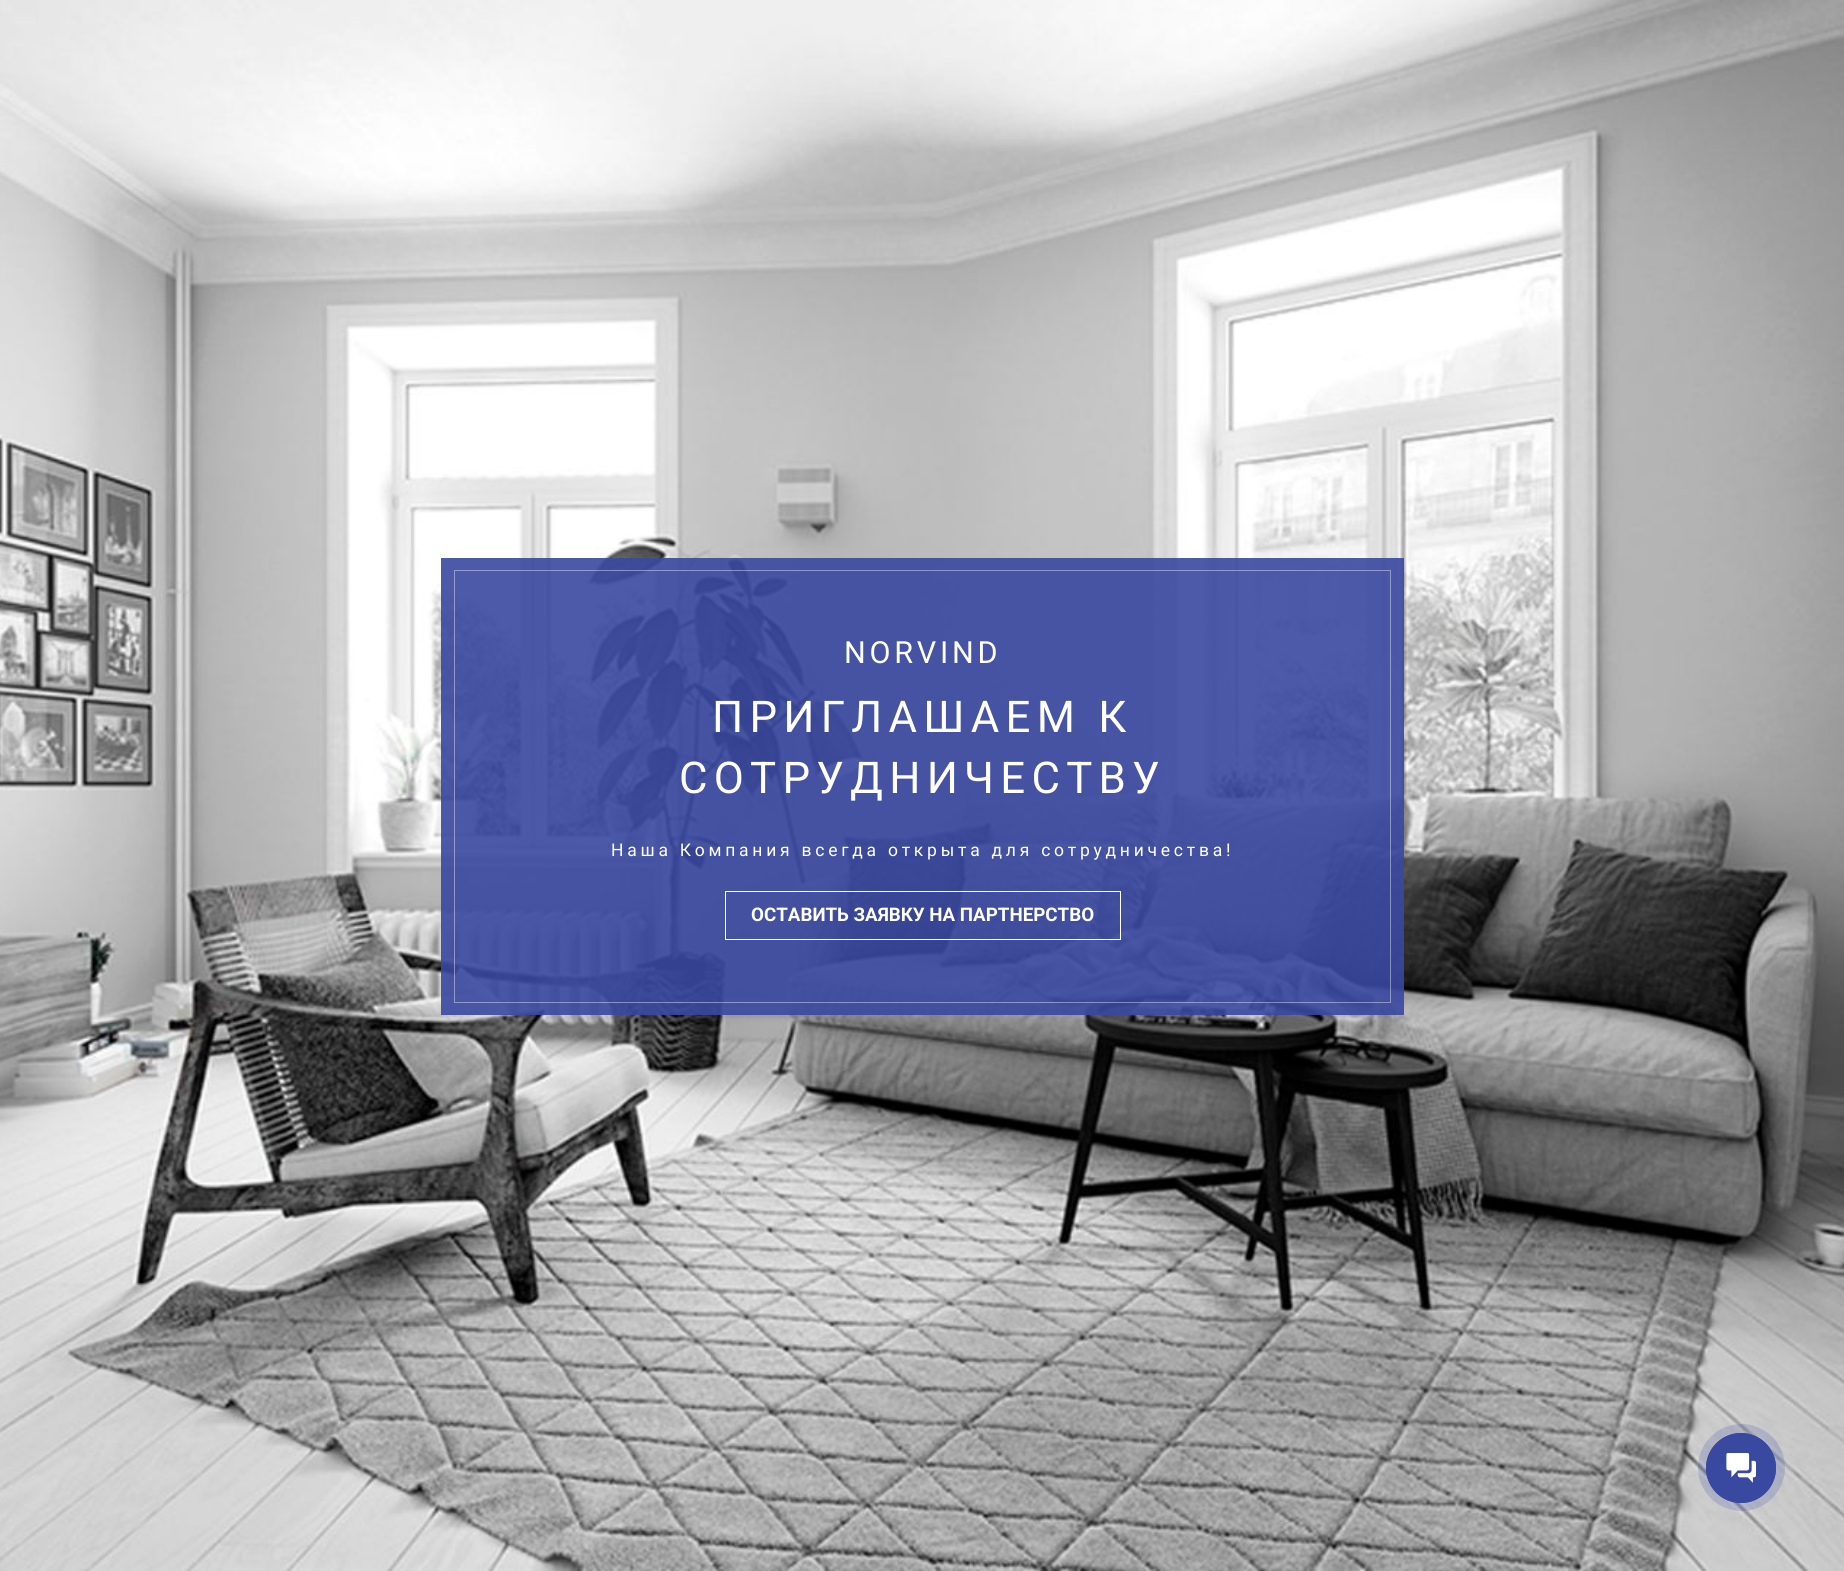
import math
import cairo

surface = cairo.ImageSurface(cairo.FORMAT_RGB24, 1844, 1571)
c = cairo.Context(surface)
options = cairo.FontOptions()
options.set_hint_metrics(cairo.HINT_METRICS_OFF)
options.set_hint_style(cairo.HINT_STYLE_NONE)
c.set_font_options(options)
c.set_miter_limit(4)
def C(code):
 c.set_source_rgb(*(v / 255 for v in bytes.fromhex(code[-6:])))
def F(family, size, italic, bold):
 c.select_font_face(family, cairo.FONT_SLANT_ITALIC if italic else cairo.FONT_SLANT_NORMAL, cairo.FONT_WEIGHT_BOLD if bold else cairo.FONT_WEIGHT_NORMAL)
 c.set_font_size(size)
def T(x, y, s):
 c.move_to(x, y)
 c.show_text(s)
def L(x, y, s, letter, word):
 c.move_to(x, y)
 for ch in s:
  c.show_text(ch)
  c.rel_move_to(letter + word * (ch == ' '), 0)
def R(x, y, w, h):
 c.rectangle(x, y, w, h)
 c.fill()
def I(path, x, y, w, h):
 c.save()
 c.set_source_surface(cairo.ImageSurface.create_from_png(path), x, y)
 c.rectangle(x, y, w, h)
 c.fill()
 c.restore()
C('ffffff')
c.paint()
I('1.png',0,0,1844,1571)
c.set_source_rgba(0.224,0.286,0.627,0.9)
R(441,558,963,457)
c.rectangle(454.5,570.5,936,432)
c.set_source_rgba(1,1,1,0.4)
c.set_line_width(1)
c.stroke()
F('Roboto',30.5,0,0)
C('ffffff')
L(844,663,'NORVIND',3.75,0)
F('Roboto',43.75,0,0)
L(712,732,'ПРИГЛАШАЕМ К',6.25,0)
L(679,793,'СОТРУДНИЧЕСТВУ',6.25,0)
F('Roboto',17.5,0,0)
L(611,856,'Наша Компания всегда открыта для сотрудничества!',3.75,0)
c.rectangle(725.5,891.5,395,48)
c.stroke()
F('Roboto',18.75,0,1)
T(751,921,'ОСТАВИТЬ ЗАЯВКУ НА ПАРТНЕРСТВО')
c.set_source_rgba(0.224,0.286,0.627,0.2)
c.new_path()
c.arc(1741.5,1467.5,43.5,0,2 * math.pi)
c.fill()
c.arc(1741,1468,34.5,0,2 * math.pi)
C('3949a0')
c.stroke()
c.arc(1741,1468,35,0,2 * math.pi)
c.fill()
I('2.png',1726,1453,30,30)
surface.write_to_png('o.png')
